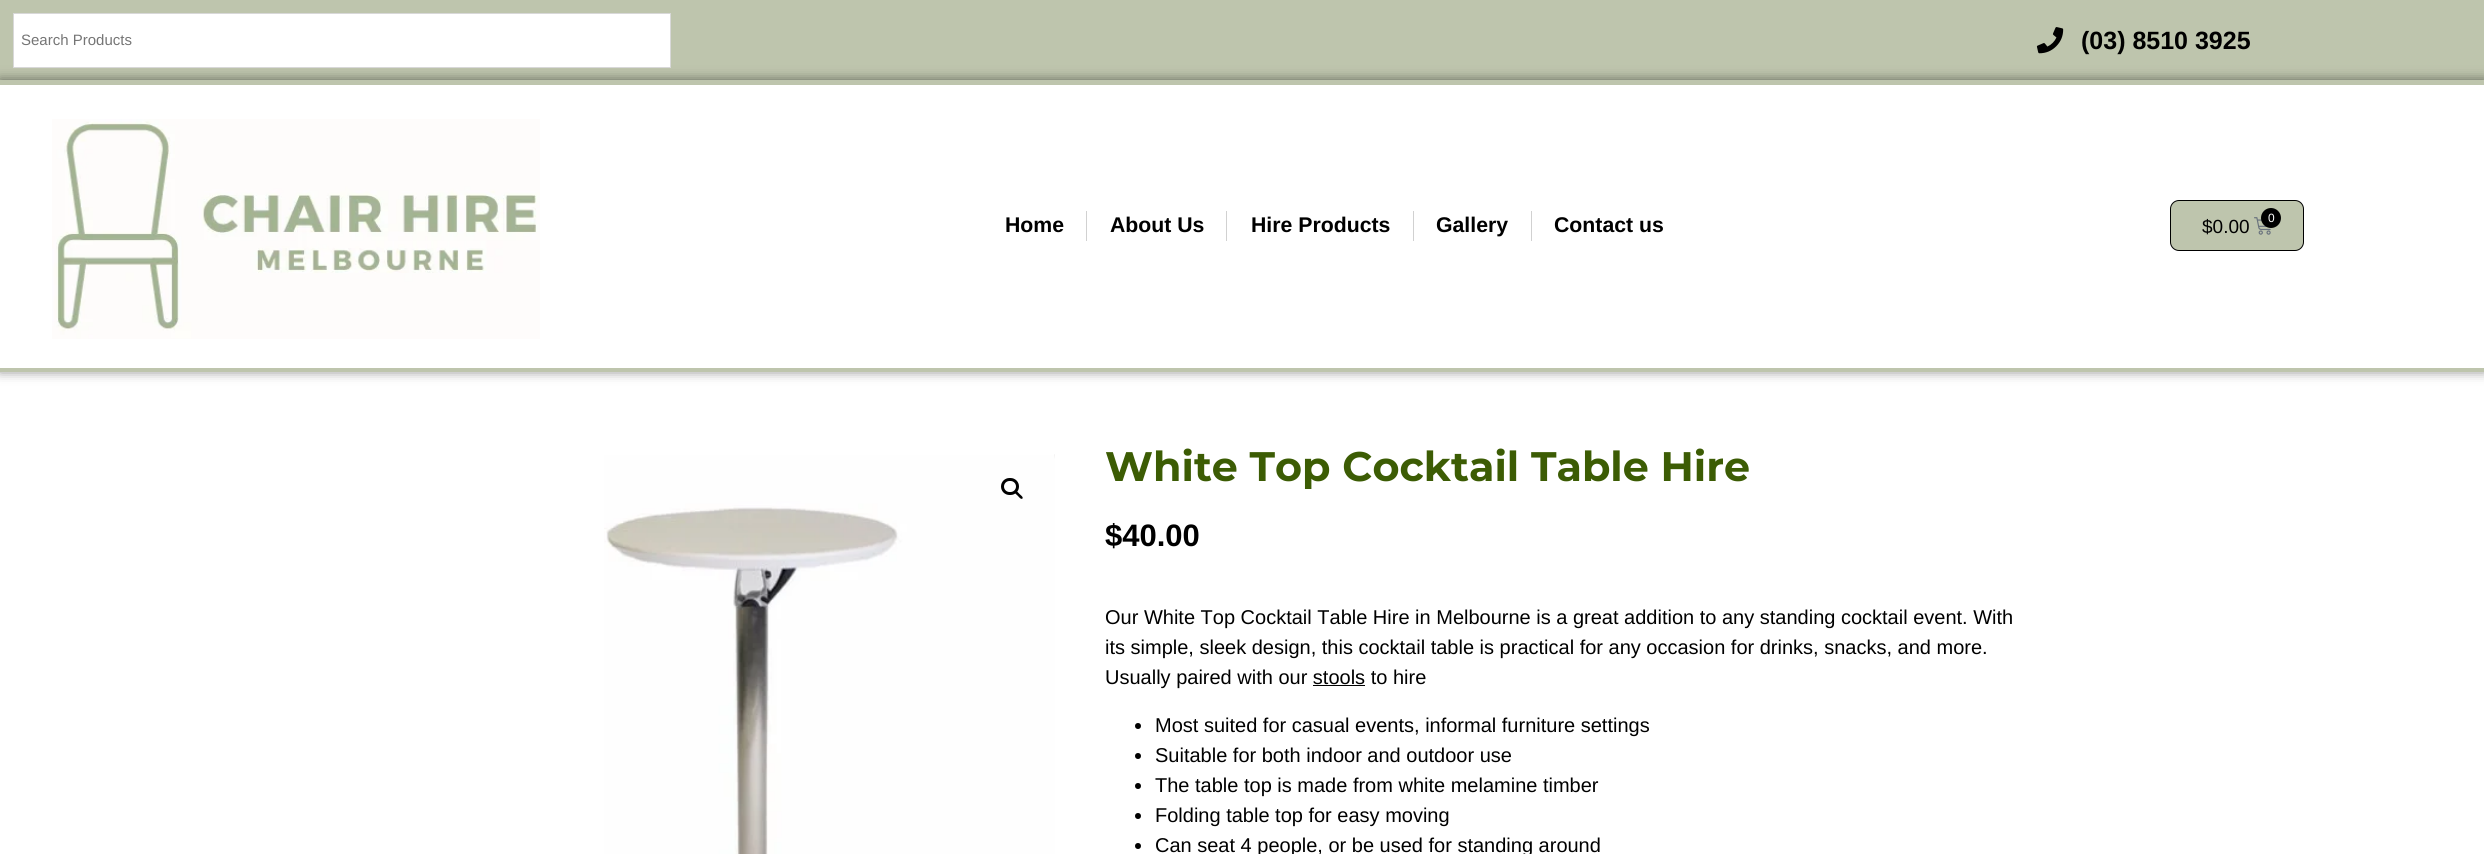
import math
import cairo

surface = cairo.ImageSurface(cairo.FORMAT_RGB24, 2484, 854)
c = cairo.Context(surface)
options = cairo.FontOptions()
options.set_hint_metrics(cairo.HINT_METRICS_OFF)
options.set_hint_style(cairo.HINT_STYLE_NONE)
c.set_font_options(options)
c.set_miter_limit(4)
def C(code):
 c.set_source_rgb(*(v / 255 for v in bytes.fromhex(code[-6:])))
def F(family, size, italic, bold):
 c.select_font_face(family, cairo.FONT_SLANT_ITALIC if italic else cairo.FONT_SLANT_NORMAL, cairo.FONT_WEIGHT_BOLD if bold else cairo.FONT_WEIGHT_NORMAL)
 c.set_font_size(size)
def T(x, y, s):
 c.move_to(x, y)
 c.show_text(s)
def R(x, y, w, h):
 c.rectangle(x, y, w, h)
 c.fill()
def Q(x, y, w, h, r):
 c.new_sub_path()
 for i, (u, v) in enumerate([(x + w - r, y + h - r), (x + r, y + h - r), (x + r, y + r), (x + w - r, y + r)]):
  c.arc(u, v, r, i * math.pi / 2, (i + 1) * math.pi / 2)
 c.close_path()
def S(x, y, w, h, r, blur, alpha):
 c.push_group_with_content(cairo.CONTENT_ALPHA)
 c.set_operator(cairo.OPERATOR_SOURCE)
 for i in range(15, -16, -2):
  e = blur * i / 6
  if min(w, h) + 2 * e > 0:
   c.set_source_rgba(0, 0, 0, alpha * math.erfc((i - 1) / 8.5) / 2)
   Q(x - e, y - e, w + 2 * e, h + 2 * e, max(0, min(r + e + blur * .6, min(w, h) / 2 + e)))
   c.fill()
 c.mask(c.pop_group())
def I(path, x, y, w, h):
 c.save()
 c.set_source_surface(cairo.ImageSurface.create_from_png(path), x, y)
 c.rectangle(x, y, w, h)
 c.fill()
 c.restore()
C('ffffff')
c.paint()
C('bec5ad')
R(0,0,2484,80)
c.save()
c.set_fill_rule(cairo.FILL_RULE_EVEN_ODD)
c.new_path()
c.move_to(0,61)
c.line_to(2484,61)
c.line_to(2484,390)
c.line_to(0,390)
c.close_path()
c.move_to(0,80)
c.line_to(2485,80)
c.line_to(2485,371)
c.line_to(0,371)
c.close_path()
c.clip()
C('000000')
S(0,80,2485,291,0,6,.5)
c.restore()
C('ffffff')
c.rectangle(13.5,13.5,657,54)
c.fill_preserve()
C('d8d8d8')
c.set_line_width(1)
c.stroke()
F('Liberation Sans',15,0,0)
C('757575')
T(21,45,'Search Products')
I('1.png',2036,27,28,27)
F('Liberation Sans',25,0,1)
C('000000')
T(2081,49,'(03) 8510 3925')
C('bec5ad')
R(0,80,2484,5)
R(0,368,2484,4)
I('2.png',52,119,488,220)
F('Liberation Sans',21.25,0,1)
C('000000')
T(1005,232,'Home')
C('d1d1d1')
R(1086,211,1,30)
C('000000')
T(1110,232,'About Us')
C('d1d1d1')
R(1226,211,1,30)
C('000000')
T(1251,232,'Hire Products')
C('d1d1d1')
R(1413,211,1,30)
C('000000')
T(1436,232,'Gallery')
C('d1d1d1')
R(1531,211,1,30)
C('000000')
T(1554,232,'Contact us')
C('bec5ad')
Q(2170.5,200.5,133,50,8.5)
c.fill_preserve()
C('000000')
c.stroke()
I('3.png',2254,217,17,18)
c.arc(2271,218,10,0,2 * math.pi)
c.fill()
F('Liberation Sans',12,0,0)
C('ffffff')
T(2268,222,'0')
F('Liberation Sans',19,0,0)
C('000000')
T(2202,233,'$0.00')
I('4.png',1054,454,1,5)
I('5.png',604,455,451,399)
Q(1002.5,479.5,15,14,7)
c.set_line_width(3)
c.stroke()
c.new_path()
c.move_to(1015,491.5)
c.curve_to(1016.5,490,1019,493.5,1019.5,494)
c.curve_to(1020.5,495,1023.5,497,1022.5,498.5)
c.curve_to(1021,500,1018.5,496.5,1018,496)
c.curve_to(1017,495,1014,493,1015,491.5)
c.close_path()
c.fill()
F('Montserrat',41.25,0,1)
C('3c5c04')
T(1105,481,'White Top Cocktail Table Hire')
F('Liberation Sans',31,0,1)
C('000000')
T(1105,546,'$40.00')
F('Liberation Sans',20,0,0)
T(1105,624,'Our White Top Cocktail Table Hire in Melbourne is a great addition to any standing cocktail event. With')
T(1105,654,'its simple, sleek design, this cocktail table is practical for any occasion for drinks, snacks, and more.')
T(1105,684,'Usually paired with our stools to hire')
R(1313,685,52,1)
c.new_path()
c.arc(1138,726,3,0,2 * math.pi)
c.fill()
T(1155,732,'Most suited for casual events, informal furniture settings')
c.new_path()
c.arc(1138,756,3,0,2 * math.pi)
c.fill()
T(1155,762,'Suitable for both indoor and outdoor use')
c.new_path()
c.arc(1138,786,3,0,2 * math.pi)
c.fill()
T(1155,792,'The table top is made from white melamine timber')
c.new_path()
c.arc(1138,816,3,0,2 * math.pi)
c.fill()
T(1155,822,'Folding table top for easy moving')
c.new_path()
c.arc(1138,846,3,0,2 * math.pi)
c.fill()
T(1155,852,'Can seat 4 people, or be used for standing around')
surface.write_to_png('o.png')
